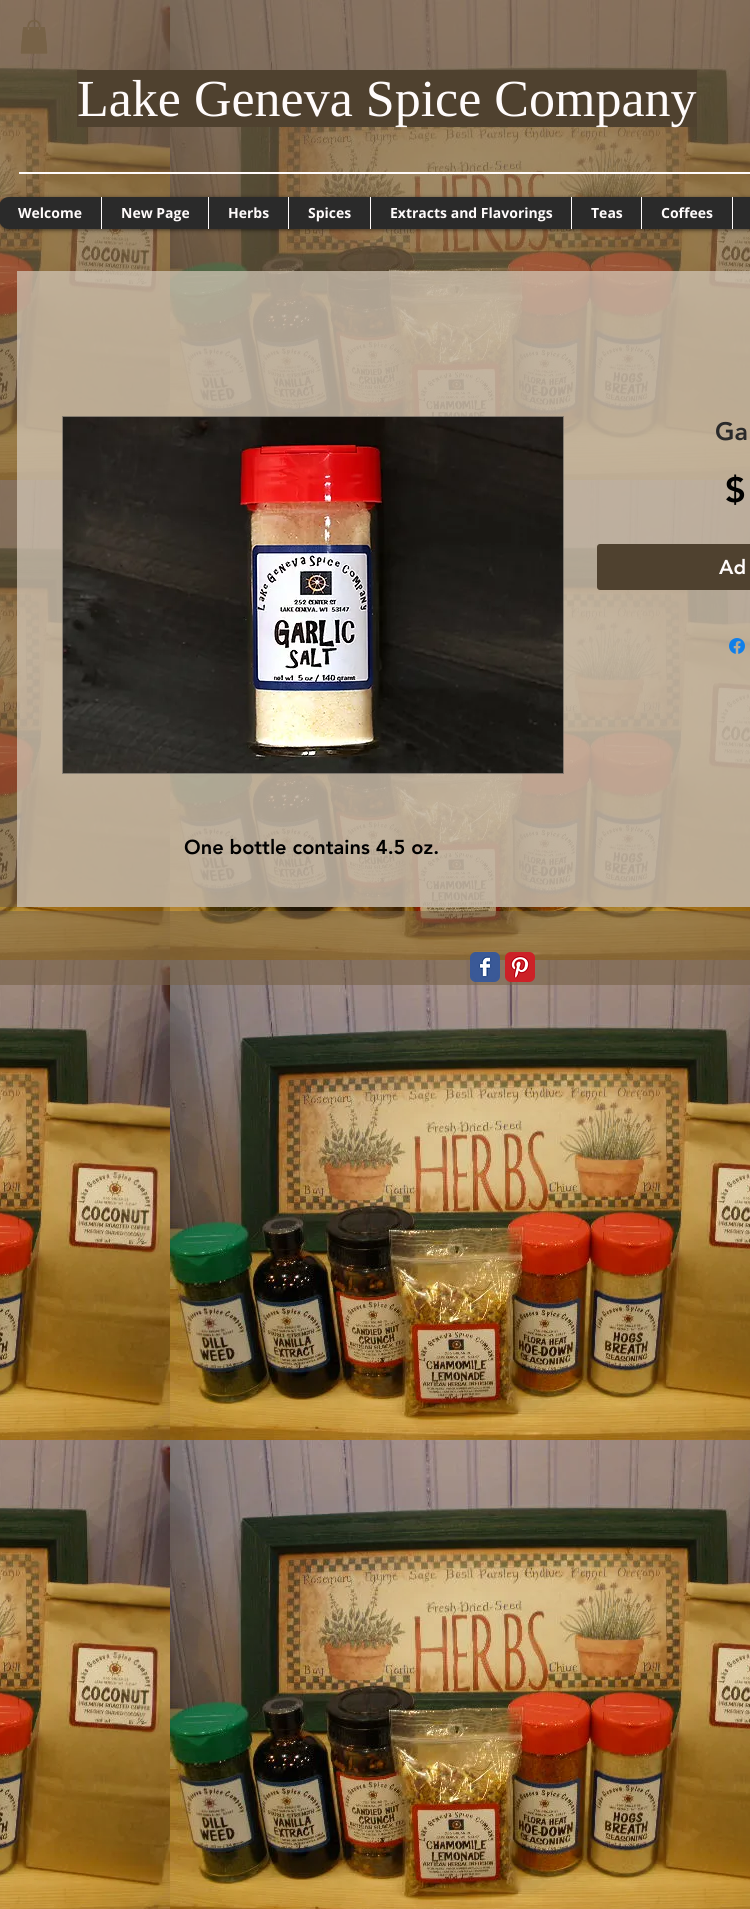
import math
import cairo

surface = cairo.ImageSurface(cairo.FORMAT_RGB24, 750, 1909)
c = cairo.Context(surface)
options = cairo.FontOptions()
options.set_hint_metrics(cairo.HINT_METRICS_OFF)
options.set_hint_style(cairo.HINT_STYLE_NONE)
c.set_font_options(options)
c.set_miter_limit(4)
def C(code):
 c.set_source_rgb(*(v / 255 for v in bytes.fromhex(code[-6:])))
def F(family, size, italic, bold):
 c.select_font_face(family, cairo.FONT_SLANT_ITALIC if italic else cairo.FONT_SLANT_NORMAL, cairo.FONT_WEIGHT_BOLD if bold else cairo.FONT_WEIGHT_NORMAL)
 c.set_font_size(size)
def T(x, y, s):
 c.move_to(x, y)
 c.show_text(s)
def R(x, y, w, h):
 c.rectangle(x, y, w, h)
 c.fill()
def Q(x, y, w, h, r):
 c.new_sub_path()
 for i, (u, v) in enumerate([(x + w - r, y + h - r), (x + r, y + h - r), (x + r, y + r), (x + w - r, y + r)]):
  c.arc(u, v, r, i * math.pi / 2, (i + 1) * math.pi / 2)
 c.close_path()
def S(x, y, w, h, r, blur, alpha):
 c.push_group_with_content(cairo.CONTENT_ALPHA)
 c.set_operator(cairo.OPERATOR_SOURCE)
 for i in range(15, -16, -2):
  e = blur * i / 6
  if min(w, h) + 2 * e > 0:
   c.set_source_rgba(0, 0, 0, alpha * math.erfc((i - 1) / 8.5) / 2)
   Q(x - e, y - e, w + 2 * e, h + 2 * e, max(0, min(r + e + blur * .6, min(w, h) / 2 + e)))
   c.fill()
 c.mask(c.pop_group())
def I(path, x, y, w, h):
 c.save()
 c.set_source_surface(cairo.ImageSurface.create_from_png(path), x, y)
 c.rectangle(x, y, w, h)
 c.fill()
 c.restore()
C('ffffff')
c.paint()
I('1.png',0,0,750,1909)
c.set_source_rgba(0.467,0.384,0.278,0.6)
R(0,0,750,264)
I('2.png',20,20,28,34)
I('3.png',21,20,26,34)
C('4f412f')
R(77,70,620,57)
F('Liberation Serif',52,0,0)
C('fffbfb')
T(77,116,'Lake Geneva Spice Company')
R(19,172,731,2)
C('000000')
S(-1,198,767,32,10,2,.6)
C('2a2a2a')
Q(-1,197,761,32,10)
c.fill()
F('Open Sans',14,0,1)
C('fffbfb')
T(18,218,'Welcome')
R(101,197,1,32)
T(121,218,'New Page')
R(208,197,1,32)
T(228,218,'Herbs')
R(288,197,1,32)
T(308,218,'Spices')
R(370,197,1,32)
T(390,218,'Extracts and Flavorings')
R(571,197,1,32)
T(591,218,'Teas')
R(641,197,1,32)
T(661,218,'Coffees')
R(732,197,1,32)
c.set_source_rgba(0.467,0.384,0.278,0.6)
R(0,264,750,643)
c.set_source_rgba(0.82,0.773,0.71,0.74)
R(17,271,733,636)
F('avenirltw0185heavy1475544 Black',25,0,0)
C('2a2a2a')
T(715,440,'Ga')
F('avenirltw0185heavy1475544 Black',35,0,0)
C('000000')
T(725,502,'$')
C('4f412f')
Q(597,544,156,46,3)
c.fill()
F('avenirltw0185heavy1475544 Black',20,0,0)
C('fffbfb')
T(719,574,'Ad')
I('4.png',729,638,16,16)
c.rectangle(62.5,416.5,501,357)
c.set_source_rgba(0.329,0.329,0.329,0.54)
c.set_line_width(1)
c.stroke()
I('5.png',63,417,500,356)
C('000000')
T(184,854,'One bottle contains 4.5 oz.')
c.set_source_rgba(0.467,0.384,0.278,0.6)
R(0,911,750,74)
I('6.png',470,952,30,30)
I('7.png',505,952,30,30)
surface.write_to_png('o.png')
